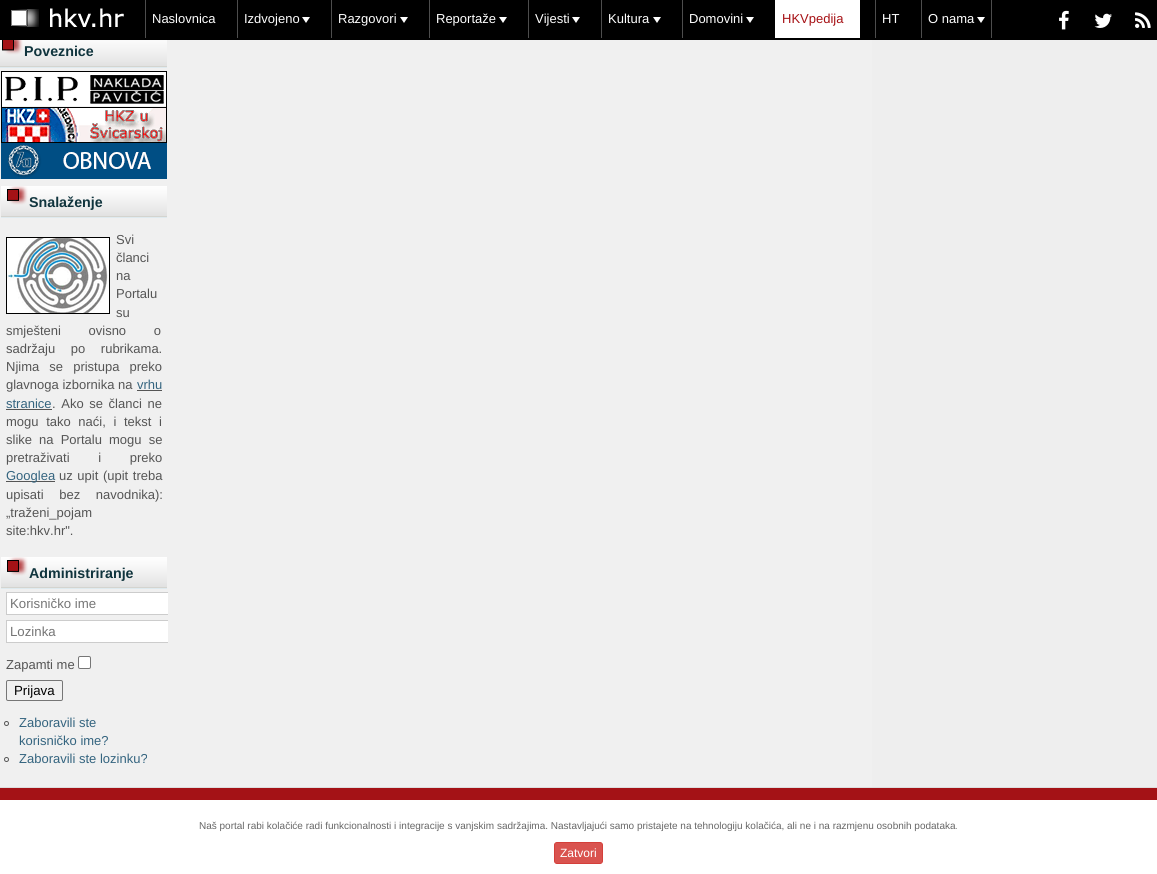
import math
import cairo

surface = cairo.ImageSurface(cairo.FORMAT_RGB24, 1157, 874)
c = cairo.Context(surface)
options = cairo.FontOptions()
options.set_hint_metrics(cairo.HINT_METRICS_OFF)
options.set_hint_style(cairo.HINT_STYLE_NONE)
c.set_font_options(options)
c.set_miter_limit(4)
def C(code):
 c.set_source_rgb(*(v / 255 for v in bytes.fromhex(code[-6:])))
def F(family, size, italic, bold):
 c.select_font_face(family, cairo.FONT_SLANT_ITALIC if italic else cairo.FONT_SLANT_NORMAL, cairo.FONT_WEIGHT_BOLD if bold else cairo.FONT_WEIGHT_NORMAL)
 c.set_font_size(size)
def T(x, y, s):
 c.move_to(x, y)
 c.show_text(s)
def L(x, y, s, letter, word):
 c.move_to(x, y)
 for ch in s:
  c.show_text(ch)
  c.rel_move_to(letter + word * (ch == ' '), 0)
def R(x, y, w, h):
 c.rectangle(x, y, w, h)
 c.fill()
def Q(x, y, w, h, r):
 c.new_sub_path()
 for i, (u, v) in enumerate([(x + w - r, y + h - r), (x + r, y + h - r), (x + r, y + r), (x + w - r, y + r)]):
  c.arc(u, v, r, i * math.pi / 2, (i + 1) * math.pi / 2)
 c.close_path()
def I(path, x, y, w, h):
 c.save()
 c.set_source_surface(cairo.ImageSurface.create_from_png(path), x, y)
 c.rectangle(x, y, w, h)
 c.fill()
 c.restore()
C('dddddd')
c.paint()
C('000000')
R(0,0,1157,40)
I('1.png',11,8,113,19)
C('4d4d4d')
R(145,0,1,38)
F('Liberation Sans',13,0,0)
C('ffffff')
T(152,23,'Naslovnica')
C('4d4d4d')
R(237,0,1,38)
C('ffffff')
T(244,23,'Izdvojeno')
c.new_path()
c.move_to(302,17)
c.line_to(310,17)
c.line_to(306,23)
c.close_path()
c.fill()
C('4d4d4d')
R(331,0,1,38)
C('ffffff')
T(338,23,'Razgovori')
c.new_path()
c.move_to(400,17)
c.line_to(408,17)
c.line_to(404,23)
c.close_path()
c.fill()
C('4d4d4d')
R(429,0,1,38)
C('ffffff')
T(436,23,'Reportaže')
c.new_path()
c.move_to(499,17)
c.line_to(507,17)
c.line_to(503,23)
c.close_path()
c.fill()
C('4d4d4d')
R(528,0,1,38)
C('ffffff')
T(535,23,'Vijesti')
c.new_path()
c.move_to(572,17)
c.line_to(580,17)
c.line_to(576,23)
c.close_path()
c.fill()
C('4d4d4d')
R(601,0,1,38)
C('ffffff')
T(608,23,'Kultura')
c.new_path()
c.move_to(653,17)
c.line_to(661,17)
c.line_to(657,23)
c.close_path()
c.fill()
C('4d4d4d')
R(682,0,1,38)
C('ffffff')
T(689,23,'Domovini')
c.new_path()
c.move_to(746,17)
c.line_to(754,17)
c.line_to(750,23)
c.close_path()
c.fill()
R(775,0,85,38)
C('a61115')
T(782,23,'HKVpedija')
C('4d4d4d')
R(875,0,1,38)
C('ffffff')
T(882,23,'HT')
C('4d4d4d')
R(991,0,1,38)
R(921,0,1,38)
C('ffffff')
T(928,23,'O nama')
c.new_path()
c.move_to(977,17)
c.line_to(985,17)
c.line_to(981,23)
c.close_path()
c.fill()
I('2.png',1059,10,10,20)
I('3.png',1094,13,18,15)
I('4.png',1135,12,16,16)
C('f0f0f0')
R(0,40,872,747)
C('eeeeee')
R(872,40,285,747)
I('5.png',0,40,167,26)
C('d4d4cf')
R(0,66,167,1)
F('Liberation Sans',14.25,0,1)
C('10343d')
T(24,56,'Poveznice')
C('dfeaef')
R(0,67,167,1)
I('6.png',1,71,166,36)
I('7.png',1,107,166,36)
I('8.png',1,143,166,36)
I('9.png',1,186,166,30)
C('d4d4cf')
R(1,216,166,1)
C('10343d')
T(29,207,'Snalaženje')
C('dfeaef')
R(1,217,166,1)
c.rectangle(6.5,237.5,103,76)
C('000000')
c.set_line_width(1)
c.stroke()
I('10.png',7,238,102,75)
F('Liberation Sans',13,0,0)
C('555555')
T(116,244,'Svi')
T(116,262,'članci')
T(116,280,'na')
T(116,298,'Portalu')
T(116,317,'su')
L(6,335,'smješteni ovisno o',0,24)
L(6,353,'sadržaju po rubrikama.',0,12)
L(6,371,'Njima se pristupa preko',0,6.5)
T(6,389,'glavnoga izbornika na')
C('34647f')
T(137,389,'vrhu')
C('555555')
R(137,390,25,1)
C('34647f')
T(6,408,'stranice')
C('555555')
R(6,409,46,1)
L(52,408,'. Ako se članci ne',0,2)
L(6,426,'mogu tako naći, i tekst i',0,4)
L(6,444,'slike na Portalu mogu se',0,3.5)
L(6,462,'pretraživati i preko',0,25)
R(6,481,49,1)
C('34647f')
T(6,480,'Googlea')
C('555555')
L(59,480,'uz upit (upit treba',0,1)
L(6,499,'upisati bez navodnika):',0,12)
T(6,517,'„traženi_pojam')
T(6,535,'site:hkv.hr".')
I('9.png',1,557,166,30)
C('d4d4cf')
R(1,587,166,1)
F('Liberation Sans',14.25,0,1)
C('10343d')
T(29,578,'Administriranje')
C('dfeaef')
R(1,588,166,1)
C('ffffff')
R(7,593,161,21)
c.save()
c.rectangle(0,0,168,787)
c.clip()
c.rectangle(6.5,592.5,168,22)
C('cccccc')
c.stroke()
c.restore()
F('Liberation Sans',13.25,0,0)
C('757575')
T(10,608,'Korisničko ime')
C('ffffff')
R(7,621,161,21)
c.save()
c.rectangle(0,0,168,787)
c.clip()
c.rectangle(6.5,620.5,168,22)
C('cccccc')
c.stroke()
c.restore()
C('757575')
T(10,636,'Lozinka')
F('Liberation Sans',13,0,0)
C('555555')
T(6,669,'Zapamti me')
C('ffffff')
Q(78.5,656.5,12,12,1.5)
c.fill_preserve()
C('767676')
c.stroke()
Q(6.5,680.5,56,20,1.5)
c.stroke()
F('Liberation Sans',13.25,0,0)
C('000000')
T(14,695,'Prijava')
c.new_path()
c.arc(6.5,723.5,2,0,2 * math.pi)
C('555555')
c.stroke()
F('Liberation Sans',13,0,0)
C('34647f')
T(19,727,'Zaboravili ste')
T(19,745,'korisničko ime?')
c.new_path()
c.arc(6.5,759.5,2,0,2 * math.pi)
C('555555')
c.stroke()
C('34647f')
T(19,763,'Zaboravili ste lozinku?')
C('a41216')
R(0,788,1157,12)
C('ffffff')
R(0,800,1157,74)
F('Liberation Sans',10,0,0)
C('666666')
T(199,829,'Naš portal rabi kolačiće radi funkcionalnosti i integracije s vanjskim sadržajima. Nastavljajući samo pristajete na tehnologiju kolačića, ali ne i na razmjenu osobnih podataka.')
C('d9534f')
Q(554.5,842.5,48,21,2.5)
c.fill_preserve()
C('d43f3a')
c.stroke()
F('Liberation Sans',12,0,0)
C('ffffff')
T(560,857,'Zatvori')
surface.write_to_png('o.png')
